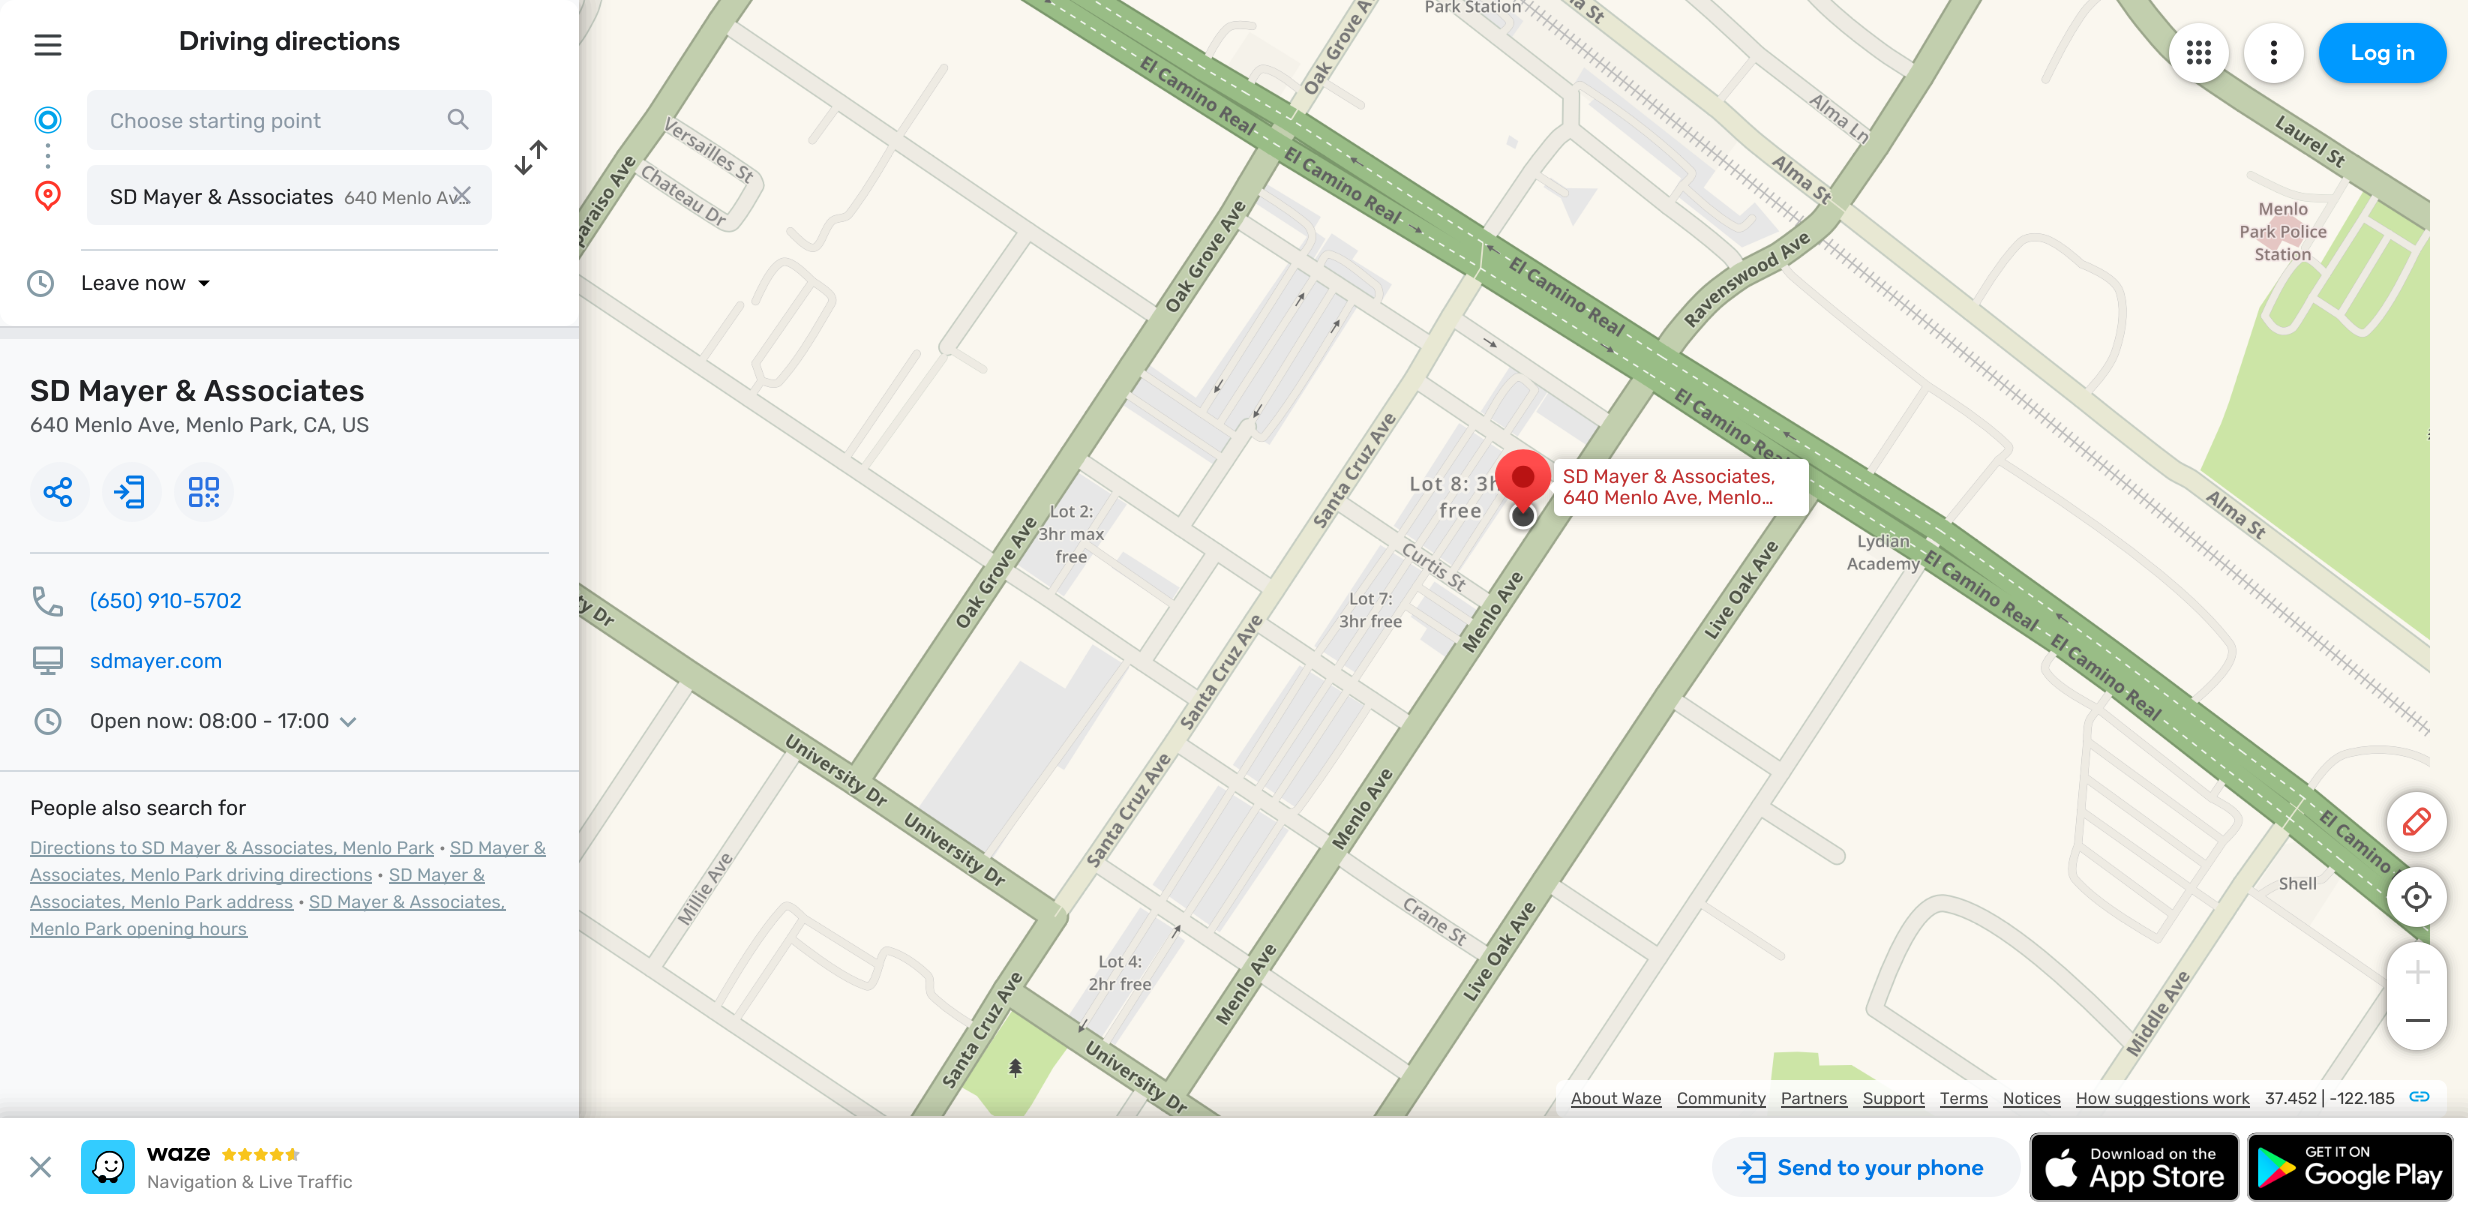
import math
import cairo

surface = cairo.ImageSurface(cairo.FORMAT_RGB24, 2468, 1216)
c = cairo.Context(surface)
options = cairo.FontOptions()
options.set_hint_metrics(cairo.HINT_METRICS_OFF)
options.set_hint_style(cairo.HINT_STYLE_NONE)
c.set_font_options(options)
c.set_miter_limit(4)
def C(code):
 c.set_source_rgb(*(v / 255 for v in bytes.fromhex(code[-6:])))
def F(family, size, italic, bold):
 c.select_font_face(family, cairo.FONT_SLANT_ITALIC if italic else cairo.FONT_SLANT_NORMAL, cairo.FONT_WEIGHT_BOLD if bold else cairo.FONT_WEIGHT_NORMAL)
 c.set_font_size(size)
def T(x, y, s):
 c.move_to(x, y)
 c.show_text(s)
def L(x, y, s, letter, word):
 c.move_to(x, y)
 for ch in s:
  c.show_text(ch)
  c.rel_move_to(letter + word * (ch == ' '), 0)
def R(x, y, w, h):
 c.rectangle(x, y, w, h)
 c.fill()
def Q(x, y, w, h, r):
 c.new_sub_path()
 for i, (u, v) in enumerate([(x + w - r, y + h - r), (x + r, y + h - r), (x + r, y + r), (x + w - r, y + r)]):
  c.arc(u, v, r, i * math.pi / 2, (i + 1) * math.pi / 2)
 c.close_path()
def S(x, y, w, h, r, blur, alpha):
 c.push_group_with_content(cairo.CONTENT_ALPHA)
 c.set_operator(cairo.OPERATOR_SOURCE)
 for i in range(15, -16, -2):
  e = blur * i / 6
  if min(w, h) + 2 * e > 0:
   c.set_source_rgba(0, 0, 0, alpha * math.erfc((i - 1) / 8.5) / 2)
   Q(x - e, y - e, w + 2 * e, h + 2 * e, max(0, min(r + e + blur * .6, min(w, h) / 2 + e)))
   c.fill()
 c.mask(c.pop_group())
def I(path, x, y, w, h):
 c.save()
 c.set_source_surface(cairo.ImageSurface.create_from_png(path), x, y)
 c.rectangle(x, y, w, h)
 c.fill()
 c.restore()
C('f9f6ed')
c.paint()
I('14.png',579,0,315,348)
I('19.png',579,348,315,384)
I('24.png',579,732,315,384)
C('000000')
S(0,3,579,1118,0,6,.12)
S(0,0,579,1118,0,15,.3)
C('f8f9fa')
R(0,0,579,1118)
C('ffffff')
c.new_path()
c.move_to(15,0)
c.line_to(564,0)
c.curve_to(572.5,0,579,6.5,579,15)
c.line_to(579,90)
c.line_to(0,90)
c.line_to(0,15)
c.curve_to(0,6.5,6.5,0,15,0)
c.close_path()
c.fill()
I('1.png',34,34,28,22)
F('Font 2 Medium',27,0,0)
C('202124')
L(179,50,'Driving directions',.5,0)
C('ffffff')
R(0,90,579,159)
C('869ca7')
c.new_path()
c.arc(48,145.5,2.2,0,2 * math.pi)
c.fill()
c.arc(48,156,2.2,0,2 * math.pi)
c.fill()
c.arc(48,166.5,2.2,0,2 * math.pi)
c.fill()
I('2.png',34,106,28,28)
C('f2f4f7')
Q(87,90,405,60,9)
c.fill()
F('Rubik',21,0,0)
C('8b98a5')
T(110,128,'Choose starting point')
I('3.png',447,108,22,22)
I('4.png',514,139,34,37)
I('5.png',35,180,26,31)
C('f2f4f7')
Q(87,165,405,60,9)
c.fill()
F('Rubik',18,0,0)
C('777777')
T(344,204,'640 Menlo Av…')
I('6.png',453,186,18,18)
F('Rubik',21,0,0)
C('202124')
T(110,204,'SD Mayer & Associates')
C('ffffff')
c.new_path()
c.move_to(0,249)
c.line_to(579,249)
c.line_to(579,311)
c.curve_to(579,319.5,572.5,326,564,326)
c.line_to(15,326)
c.curve_to(6.5,326,0,319.5,0,311)
c.close_path()
c.fill()
C('d3dae0')
R(81,249,417,2)
I('7.png',27,270,27,27)
C('202124')
T(81,290,'Leave now')
C('000000')
c.new_path()
c.move_to(198,280.5)
c.line_to(210,280.5)
c.line_to(204,286.5)
c.close_path()
c.fill()
C('d5d7db')
R(0,326,579,2)
C('e8eaed')
R(0,328,579,11)
C('d3dae0')
R(30,552,519,2)
F('Rubik Medium',30,0,0)
C('202124')
L(30,401,'SD Mayer & Associates',.25,0)
F('Rubik',21,0,0)
C('55595e')
T(30,432,'640 Menlo Ave, Menlo Park, CA, US')
C('f2f4f7')
c.new_path()
c.arc(60,492,30,0,2 * math.pi)
c.fill()
I('8.png',43,477,29,30)
c.arc(132,492,30,0,2 * math.pi)
c.fill()
I('9.png',114,475,30,34)
c.arc(204,492,30,0,2 * math.pi)
c.fill()
I('10.png',189,477,30,30)
I('11.png',33,586,30,31)
C('0075e3')
T(90,608,'(650) 910-5702')
I('12.png',33,646,30,29)
T(90,668,'sdmayer.com')
I('13.png',34,708,28,27)
C('3c4043')
T(90,728,'Open now: 08:00 - 17:00')
C('859ba6')
c.new_path()
c.move_to(354.5,717)
c.line_to(356.5,719)
c.line_to(348,727.5)
c.line_to(339.5,719)
c.line_to(341.5,717)
c.line_to(348,723.5)
c.close_path()
c.fill()
C('d3dae0')
R(0,770,579,2)
C('202124')
T(30,815,'People also search for')
C('859ba6')
R(30,855,404,2)
F('Rubik',18,0,0)
T(30,854,'Directions to SD Mayer & Associates, Menlo Park')
C('818181')
T(439,854,'•')
C('859ba6')
R(450,855,96,2)
T(450,854,'SD Mayer &')
R(30,882,342,2)
T(30,881,'Associates, Menlo Park driving directions')
C('818181')
T(377,881,'•')
C('859ba6')
R(389,882,96,2)
T(389,881,'SD Mayer &')
R(30,909,264,2)
T(30,908,'Associates, Menlo Park address')
C('818181')
T(298,908,'•')
C('859ba6')
R(309,909,197,2)
T(309,908,'SD Mayer & Associates,')
R(30,936,218,2)
T(30,935,'Menlo Park opening hours')
I('15.png',894,0,384,348)
I('16.png',1278,0,384,348)
I('17.png',1662,0,384,348)
I('18.png',2046,0,384,348)
I('20.png',894,348,384,384)
I('21.png',1278,348,384,384)
I('22.png',1662,348,384,384)
I('23.png',2046,348,384,384)
I('25.png',894,732,384,384)
I('26.png',1278,732,384,384)
I('27.png',1662,732,384,384)
I('28.png',2046,732,384,384)
C('000000')
S(1554,459,255,57,6,6,.3)
C('ffffff')
c.new_path()
c.move_to(1554,481.5)
c.line_to(1554,493.5)
c.line_to(1548,487.5)
c.close_path()
c.fill()
I('29.png',1495,449,57,86)
Q(1554,459,255,57,6)
c.fill()
F('Rubik',19.5,0,0)
C('c03131')
T(1563,483,'SD Mayer & Associates,')
T(1563,504,'640 Menlo Ave, Menlo…')
C('000000')
S(2387,792,60,60,30,7.5,.3)
S(2387,792,60,60,30,3,.3)
C('ffffff')
c.arc(2417,822,30,0,2 * math.pi)
c.fill()
I('30.png',2403,807,29,29)
C('000000')
S(2387,867,60,60,30,7.5,.3)
S(2387,867,60,60,30,3,.3)
C('ffffff')
c.arc(2417,897,30,0,2 * math.pi)
c.fill()
I('31.png',2401,882,31,30)
C('000000')
S(2387,942,60,108,30,7.5,.3)
S(2387,942,60,108,30,3,.3)
C('ffffff')
Q(2387,942,60,108,30)
c.fill()
I('32.png',2406,960,24,24)
c.new_path()
c.move_to(2387,996)
c.line_to(2447,996)
c.line_to(2447,1020)
c.curve_to(2447,1036.5,2433.5,1050,2417,1050)
c.curve_to(2400.5,1050,2387,1036.5,2387,1020)
c.close_path()
c.fill()
C('4c4c4c')
R(2406,1019,24,3)
c.set_source_rgba(1,1,1,0.9)
Q(1556,1080,891,38,9)
c.fill()
F('Rubik',16.5,0,0)
C('4c4c4c')
T(1571,1104,'About Waze')
R(1571,1106,91,2)
R(1677,1106,89,2)
T(1677,1104,'Community')
T(1781,1104,'Partners')
R(1781,1106,67,2)
R(1863,1106,62,2)
T(1863,1104,'Support')
T(1940,1104,'Terms')
R(1940,1106,48,2)
T(2003,1104,'Notices')
R(2003,1106,58,2)
R(2076,1106,174,2)
T(2076,1104,'How suggestions work')
C('3d3d3d')
T(2265,1104,'37.452 | -122.185')
I('33.png',2409,1091,21,11)
C('3c4043')
S(2169,29,60,60,30,6,.15)
C('000000')
S(2169,24,60,60,30,2,.3)
C('ffffff')
c.arc(2199,53,28.5,0,2 * math.pi)
c.fill_preserve()
c.set_line_width(3)
c.stroke()
I('34.png',2187,40,24,25)
C('3c4043')
S(2244,29,60,60,30,6,.15)
C('000000')
S(2244,24,60,60,30,2,.3)
C('ffffff')
c.arc(2274,53,28.5,0,2 * math.pi)
c.fill_preserve()
c.stroke()
I('35.png',2271,40,6,25)
C('3c4043')
S(2319,29,128,60,30,6,.15)
C('000000')
S(2319,24,128,60,30,2,.3)
C('0099ff')
Q(2319,23,128,60,30)
c.fill()
F('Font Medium',22.5,0,0)
C('ffffff')
L(2351,60,'Log in',.5,0)
C('000000')
S(0,1118,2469,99,0,13.5,.3)
C('ffffff')
R(0,1118,2468,98)
I('36.png',29,1156,23,22)
C('f2f4f7')
Q(1712,1137,309,60,30)
c.fill()
I('37.png',1737,1151,29,33)
C('0075e3')
L(1778,1175,'Send to your phone',.5,0)
I('38.png',2029,1132,211,70)
Q(2031,1134,208,67,8)
C('b7b7b7')
c.set_line_width(2)
c.stroke()
I('39.png',2247,1132,207,70)
Q(2248,1134,205,67,8)
c.stroke()
I('40.png',81,1140,54,54)
I('41.png',147,1148,63,13)
I('42.png',222,1148,78,13)
F('Rubik',18,0,0)
C('818181')
T(147,1188,'Navigation & Live Traffic')
surface.write_to_png('o.png')
